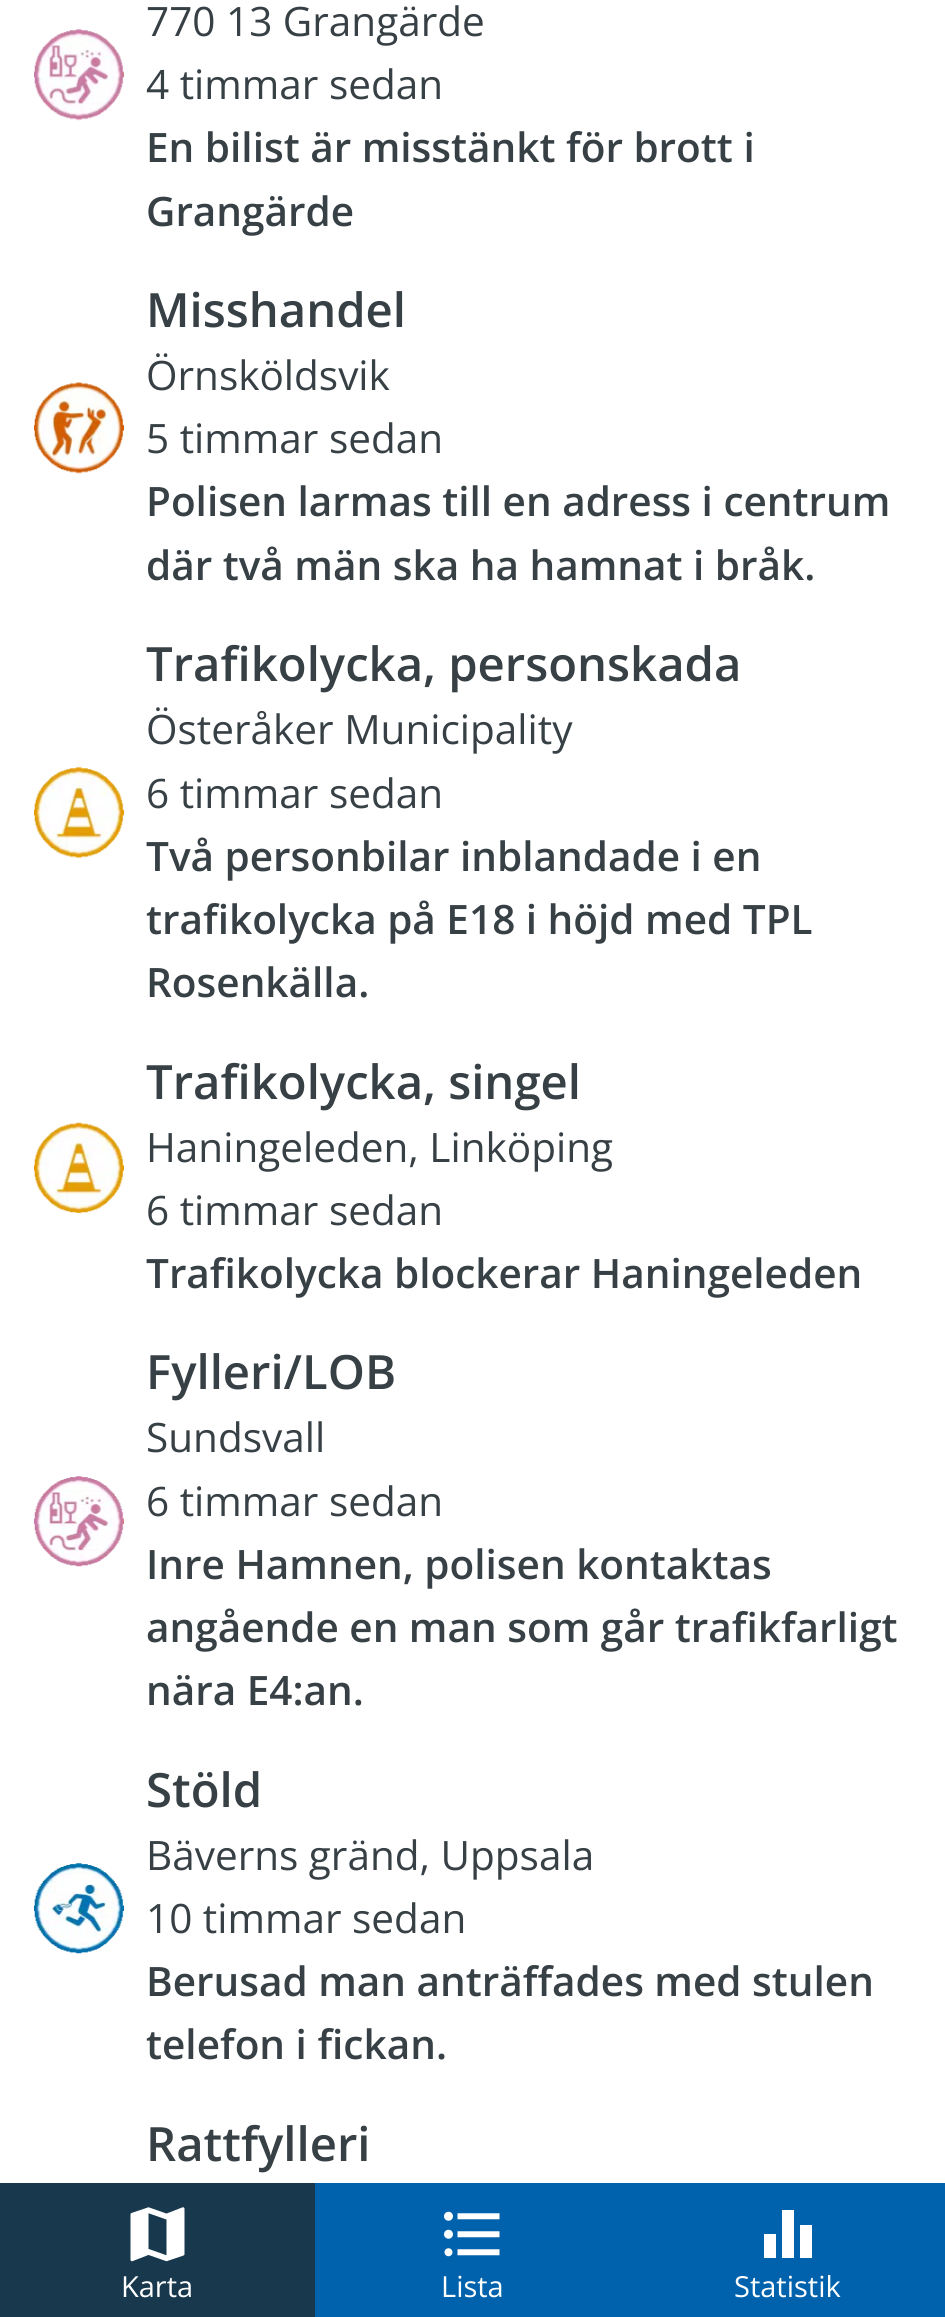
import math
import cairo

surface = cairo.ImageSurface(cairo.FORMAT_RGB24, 945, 2317)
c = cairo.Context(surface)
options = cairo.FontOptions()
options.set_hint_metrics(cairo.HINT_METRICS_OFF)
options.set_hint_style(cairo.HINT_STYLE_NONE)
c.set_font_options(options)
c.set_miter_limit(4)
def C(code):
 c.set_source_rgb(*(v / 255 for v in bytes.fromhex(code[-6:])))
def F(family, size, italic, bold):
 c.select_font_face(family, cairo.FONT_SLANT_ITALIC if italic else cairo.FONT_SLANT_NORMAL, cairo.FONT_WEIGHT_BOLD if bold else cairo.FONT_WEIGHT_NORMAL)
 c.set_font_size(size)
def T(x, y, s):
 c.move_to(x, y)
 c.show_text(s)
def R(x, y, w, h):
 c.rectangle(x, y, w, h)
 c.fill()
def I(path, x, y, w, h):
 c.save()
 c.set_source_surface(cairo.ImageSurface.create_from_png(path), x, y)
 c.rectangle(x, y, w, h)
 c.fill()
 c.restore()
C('ffffff')
c.paint()
I('1.png',34,29,90,92)
F('Open Sans',40.5,0,0)
C('374045')
T(146,36,'770 13 Grangärde')
T(146,99,'4 timmar sedan')
F('Open Sans SemiBold',40.5,0,0)
T(146,162,'En bilist är misstänkt för brott i')
T(146,226,'Grangärde')
I('2.png',34,382,90,92)
F('Open Sans SemiBold',47.25,0,0)
T(146,327,'Misshandel')
F('Open Sans',40.5,0,0)
T(146,390,'Örnsköldsvik')
T(146,453,'5 timmar sedan')
F('Open Sans SemiBold',40.5,0,0)
T(146,516,'Polisen larmas till en adress i centrum')
T(146,580,'där två män ska ha hamnat i bråk.')
I('3.png',34,767,90,92)
F('Open Sans SemiBold',47.25,0,0)
T(146,681,'Trafikolycka, personskada')
F('Open Sans',40.5,0,0)
T(146,744,'Österåker Municipality')
T(146,808,'6 timmar sedan')
F('Open Sans SemiBold',40.5,0,0)
T(146,871,'Två personbilar inblandade i en')
T(146,934,'trafikolycka på E18 i höjd med TPL')
T(146,997,'Rosenkälla.')
I('4.png',34,1122,90,91)
F('Open Sans SemiBold',47.25,0,0)
T(146,1099,'Trafikolycka, singel')
F('Open Sans',40.5,0,0)
T(146,1162,'Haningeleden, Linköping')
T(146,1225,'6 timmar sedan')
F('Open Sans SemiBold',40.5,0,0)
T(146,1288,'Trafikolycka blockerar Haningeleden')
I('5.png',34,1476,90,91)
F('Open Sans SemiBold',47.25,0,0)
T(146,1389,'Fylleri/LOB')
F('Open Sans',40.5,0,0)
T(146,1452,'Sundsvall')
T(146,1516,'6 timmar sedan')
F('Open Sans SemiBold',40.5,0,0)
T(146,1579,'Inre Hamnen, polisen kontaktas')
T(146,1642,'angående en man som går trafikfarligt')
T(146,1705,'nära E4:an.')
I('6.png',34,1863,90,91)
F('Open Sans SemiBold',47.25,0,0)
T(146,1807,'Stöld')
F('Open Sans',40.5,0,0)
T(146,1870,'Bäverns gränd, Uppsala')
T(146,1933,'10 timmar sedan')
F('Open Sans SemiBold',40.5,0,0)
T(146,1996,'Berusad man anträffades med stulen')
T(146,2059,'telefon i fickan.')
F('Open Sans SemiBold',47.25,0,0)
T(146,2161,'Rattfylleri')
C('0061ac')
R(315,2183,630,134)
C('17384d')
R(0,2183,315,134)
I('7.png',130,2207,55,55)
F('Open Sans',29,0,0)
C('ffffff')
T(121,2297,'Karta')
I('8.png',444,2211,56,46)
T(441,2297,'Lista')
c.new_path()
c.move_to(782,2258)
c.line_to(794,2258)
c.line_to(794,2210)
c.line_to(782,2210)
c.close_path()
c.move_to(764,2258)
c.line_to(776,2258)
c.line_to(776,2234)
c.line_to(764,2234)
c.close_path()
c.move_to(800,2225)
c.line_to(800,2258)
c.line_to(812,2258)
c.line_to(812,2225)
c.close_path()
c.fill()
T(734,2297,'Statistik')
surface.write_to_png('o.png')
